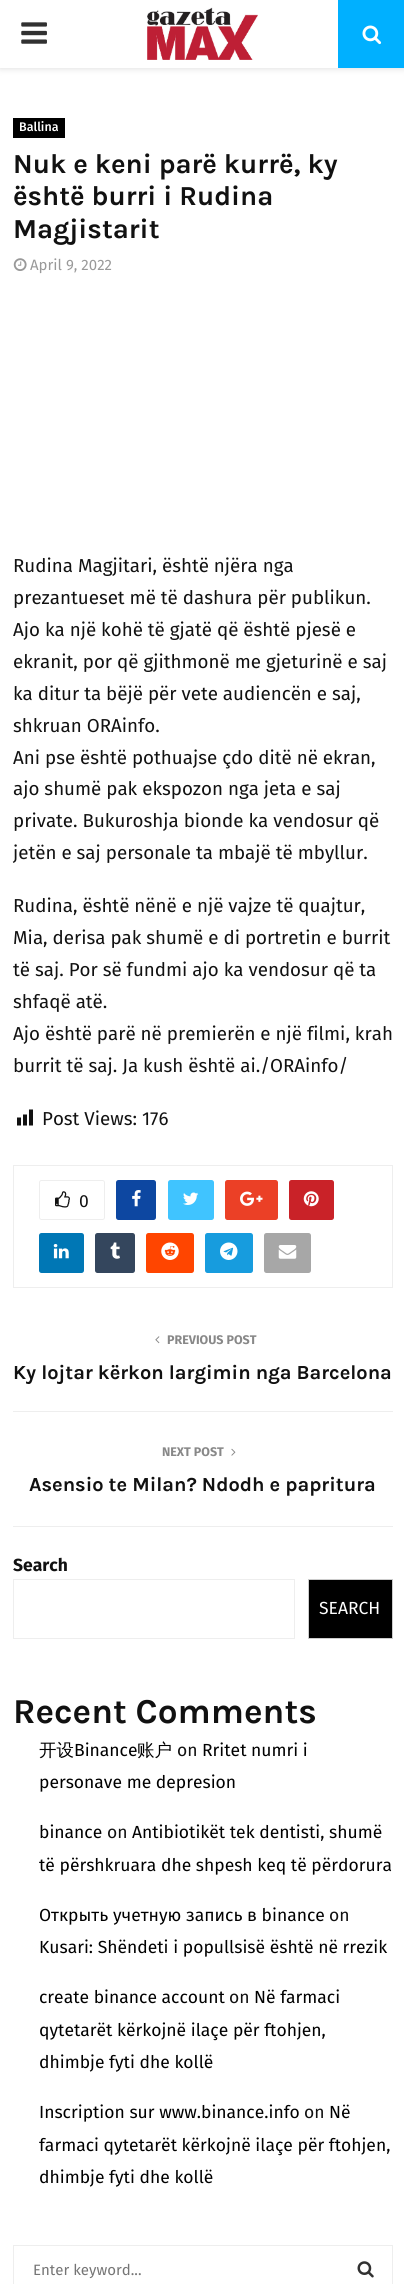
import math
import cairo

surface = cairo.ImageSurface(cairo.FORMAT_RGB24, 404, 2284)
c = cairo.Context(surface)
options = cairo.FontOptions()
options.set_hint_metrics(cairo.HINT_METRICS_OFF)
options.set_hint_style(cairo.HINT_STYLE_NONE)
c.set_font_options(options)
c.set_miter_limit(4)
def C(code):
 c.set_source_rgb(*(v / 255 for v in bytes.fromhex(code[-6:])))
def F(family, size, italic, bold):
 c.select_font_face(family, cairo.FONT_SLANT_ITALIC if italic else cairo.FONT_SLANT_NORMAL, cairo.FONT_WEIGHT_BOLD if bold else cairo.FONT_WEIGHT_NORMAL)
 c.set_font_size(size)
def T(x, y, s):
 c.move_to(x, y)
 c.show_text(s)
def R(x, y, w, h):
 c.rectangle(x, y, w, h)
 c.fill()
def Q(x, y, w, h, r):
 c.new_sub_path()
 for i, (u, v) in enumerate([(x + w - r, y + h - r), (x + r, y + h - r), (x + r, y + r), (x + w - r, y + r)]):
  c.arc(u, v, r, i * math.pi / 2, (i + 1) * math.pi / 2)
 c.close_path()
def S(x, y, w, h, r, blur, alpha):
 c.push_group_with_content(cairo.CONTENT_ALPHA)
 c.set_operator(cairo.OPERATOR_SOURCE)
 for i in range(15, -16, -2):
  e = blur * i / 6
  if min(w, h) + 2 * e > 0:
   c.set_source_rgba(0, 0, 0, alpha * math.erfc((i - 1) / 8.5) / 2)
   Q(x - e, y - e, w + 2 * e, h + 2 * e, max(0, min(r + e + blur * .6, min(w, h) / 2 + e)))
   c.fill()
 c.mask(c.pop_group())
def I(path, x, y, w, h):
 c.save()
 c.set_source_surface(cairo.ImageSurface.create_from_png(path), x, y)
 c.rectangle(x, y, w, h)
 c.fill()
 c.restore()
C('ffffff')
c.paint()
C('bebebe')
S(0,1,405,68,0,3,.46)
C('ffffff')
R(0,0,338,68)
I('1.png',21,22,26,22)
I('2.png',147,7,111,53)
C('00b0ff')
R(338,0,66,68)
I('3.png',362,25,20,20)
C('000000')
R(13,118,52,20)
F('Fira Sans Medium',12.5,0,0)
C('ffffff')
T(19,131,'Ballina')
F('Karla',27.5,0,1)
C('111111')
T(13,173,'Nuk e keni parë kurrë, ky')
T(13,205,'është burri i Rudina')
T(13,238,'Magjistarit')
I('4.png',13,258,14,13)
F('Fira Sans',15,0,0)
C('999999')
T(30,270,'April 9, 2022')
F('Fira Sans',18.75,0,0)
C('111111')
T(13,572,'Rudina Magjitari, është njëra nga')
T(13,604,'prezantueset më të dashura për publikun.')
T(13,636,'Ajo ka një kohë të gjatë që është pjesë e')
T(13,668,'ekranit, por që gjithmonë me gjeturinë e saj')
T(13,700,'ka ditur ta bëjë për vete audiencën e saj,')
T(13,732,'shkruan ORAinfo.')
T(13,764,'Ani pse është pothuajse çdo ditë në ekran,')
T(13,795,'ajo shumë pak ekspozon nga jeta e saj')
T(13,827,'private. Bukuroshja bionde ka vendosur që')
T(13,859,'jetën e saj personale ta mbajë të mbyllur.')
T(13,912,'Rudina, është nënë e një vajze të quajtur,')
T(13,944,'Mia, derisa pak shumë e di portretin e burrit')
T(13,976,'të saj. Por së fundmi ajo ka vendosur që ta')
T(13,1008,'shfaqë atë.')
T(13,1040,'Ajo është parë në premierën e një filmi, krah')
T(13,1072,'burrit të saj. Ja kush është ai./ORAinfo/')
I('5.png',17,1109,16,17)
T(42,1125,'Post Views: 176')
c.rectangle(13.5,1165.5,379,122)
C('eeeeee')
c.set_line_width(1)
c.stroke()
Q(39.5,1180.5,65,39,2)
c.stroke()
I('6.png',55,1191,15,17)
F('Fira Sans',17.5,0,0)
C('111111')
T(79,1207,'0')
C('0d47a1')
Q(116,1180,40,40,2.5)
c.fill()
I('7.png',132,1190,9,17)
C('40c4ff')
Q(168,1180,46,40,2.5)
c.fill()
I('8.png',183,1192,16,13)
C('eb4026')
Q(225,1180,53,40,2.5)
c.fill()
I('9.png',240,1191,23,15)
C('c92228')
Q(289,1180,45,40,2.5)
c.fill()
I('10.png',303,1191,16,16)
C('0077b5')
Q(39,1233,45,40,2.5)
c.fill()
I('11.png',53,1244,16,15)
C('34465d')
Q(95,1233,40,40,2.5)
c.fill()
I('12.png',110,1242,10,17)
C('ff4500')
Q(146,1233,48,40,2.5)
c.fill()
I('13.png',161,1242,18,18)
C('179cde')
Q(205,1233,48,40,2.5)
c.fill()
I('14.png',220,1242,18,18)
C('a7a7a7')
Q(264,1233,47,40,2.5)
c.fill()
I('15.png',278,1245,19,14)
C('eeeeee')
R(13,1526,380,1)
I('16.png',155,1336,5,8)
F('Fira Sans',12.5,0,1)
C('888888')
T(167,1344,'PREVIOUS POST')
F('Karla',20,0,1)
C('111111')
T(13,1379,'Ky lojtar kërkon largimin nga Barcelona')
C('eeeeee')
R(13,1411,380,1)
F('Fira Sans',12.5,0,1)
C('888888')
T(162,1456,'NEXT POST')
I('17.png',231,1448,5,8)
F('Karla',20,0,1)
C('111111')
T(29,1491,'Asensio te Milan? Ndodh e papritura')
F('Fira Sans',17.5,0,1)
T(13,1571,'Search')
c.rectangle(13.5,1579.5,281,59)
C('eeeeee')
c.stroke()
C('000000')
c.rectangle(308.5,1579.5,84,59)
c.fill_preserve()
C('cccccc')
c.stroke()
F('Fira Sans',17.5,0,0)
C('ffffff')
T(319,1614,'SEARCH')
F('Karla',35,0,1)
C('111111')
T(13,1723,'Recent Comments')
F('WenQuanYi Zen Hei Medium',17.5,0,0)
C('000000')
T(39,1756,'开设')
F('Fira Sans',17.5,0,0)
T(74,1756,'Binance')
F('WenQuanYi Zen Hei Medium',17.5,0,0)
T(137,1756,'账户')
F('Fira Sans',17.5,0,0)
C('111111')
T(177,1756,'on')
C('000000')
T(202,1756,'Rritet numri i')
T(39,1788,'personave me depresion')
T(39,1838,'binance')
C('111111')
T(107,1838,'on')
C('000000')
T(132,1838,'Antibiotikët tek dentisti, shumë')
T(39,1871,'të përshkruara dhe shpesh keq të përdorura')
T(39,1921,'Открыть учетную запись в binance')
C('111111')
T(329,1921,'on')
C('000000')
T(39,1953,'Kusari: Shëndeti i popullsisë është në rrezik')
T(39,2003,'create binance account')
C('111111')
T(229,2003,'on')
C('000000')
T(254,2003,'Në farmaci')
T(39,2036,'qytetarët kërkojnë ilaçe për ftohjen,')
T(39,2068,'dhimbje fyti dhe kollë')
T(39,2118,'Inscription sur www.binance.info')
C('111111')
T(304,2118,'on')
C('000000')
T(329,2118,'Në')
T(39,2151,'farmaci qytetarët kërkojnë ilaçe për ftohjen,')
T(39,2183,'dhimbje fyti dhe kollë')
c.rectangle(13.5,2245.5,379,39)
C('eeeeee')
c.stroke()
F('Fira Sans',15,0,0)
C('757575')
T(33,2275,'Enter keyword...')
I('18.png',357,2261,17,17)
surface.write_to_png('o.png')
